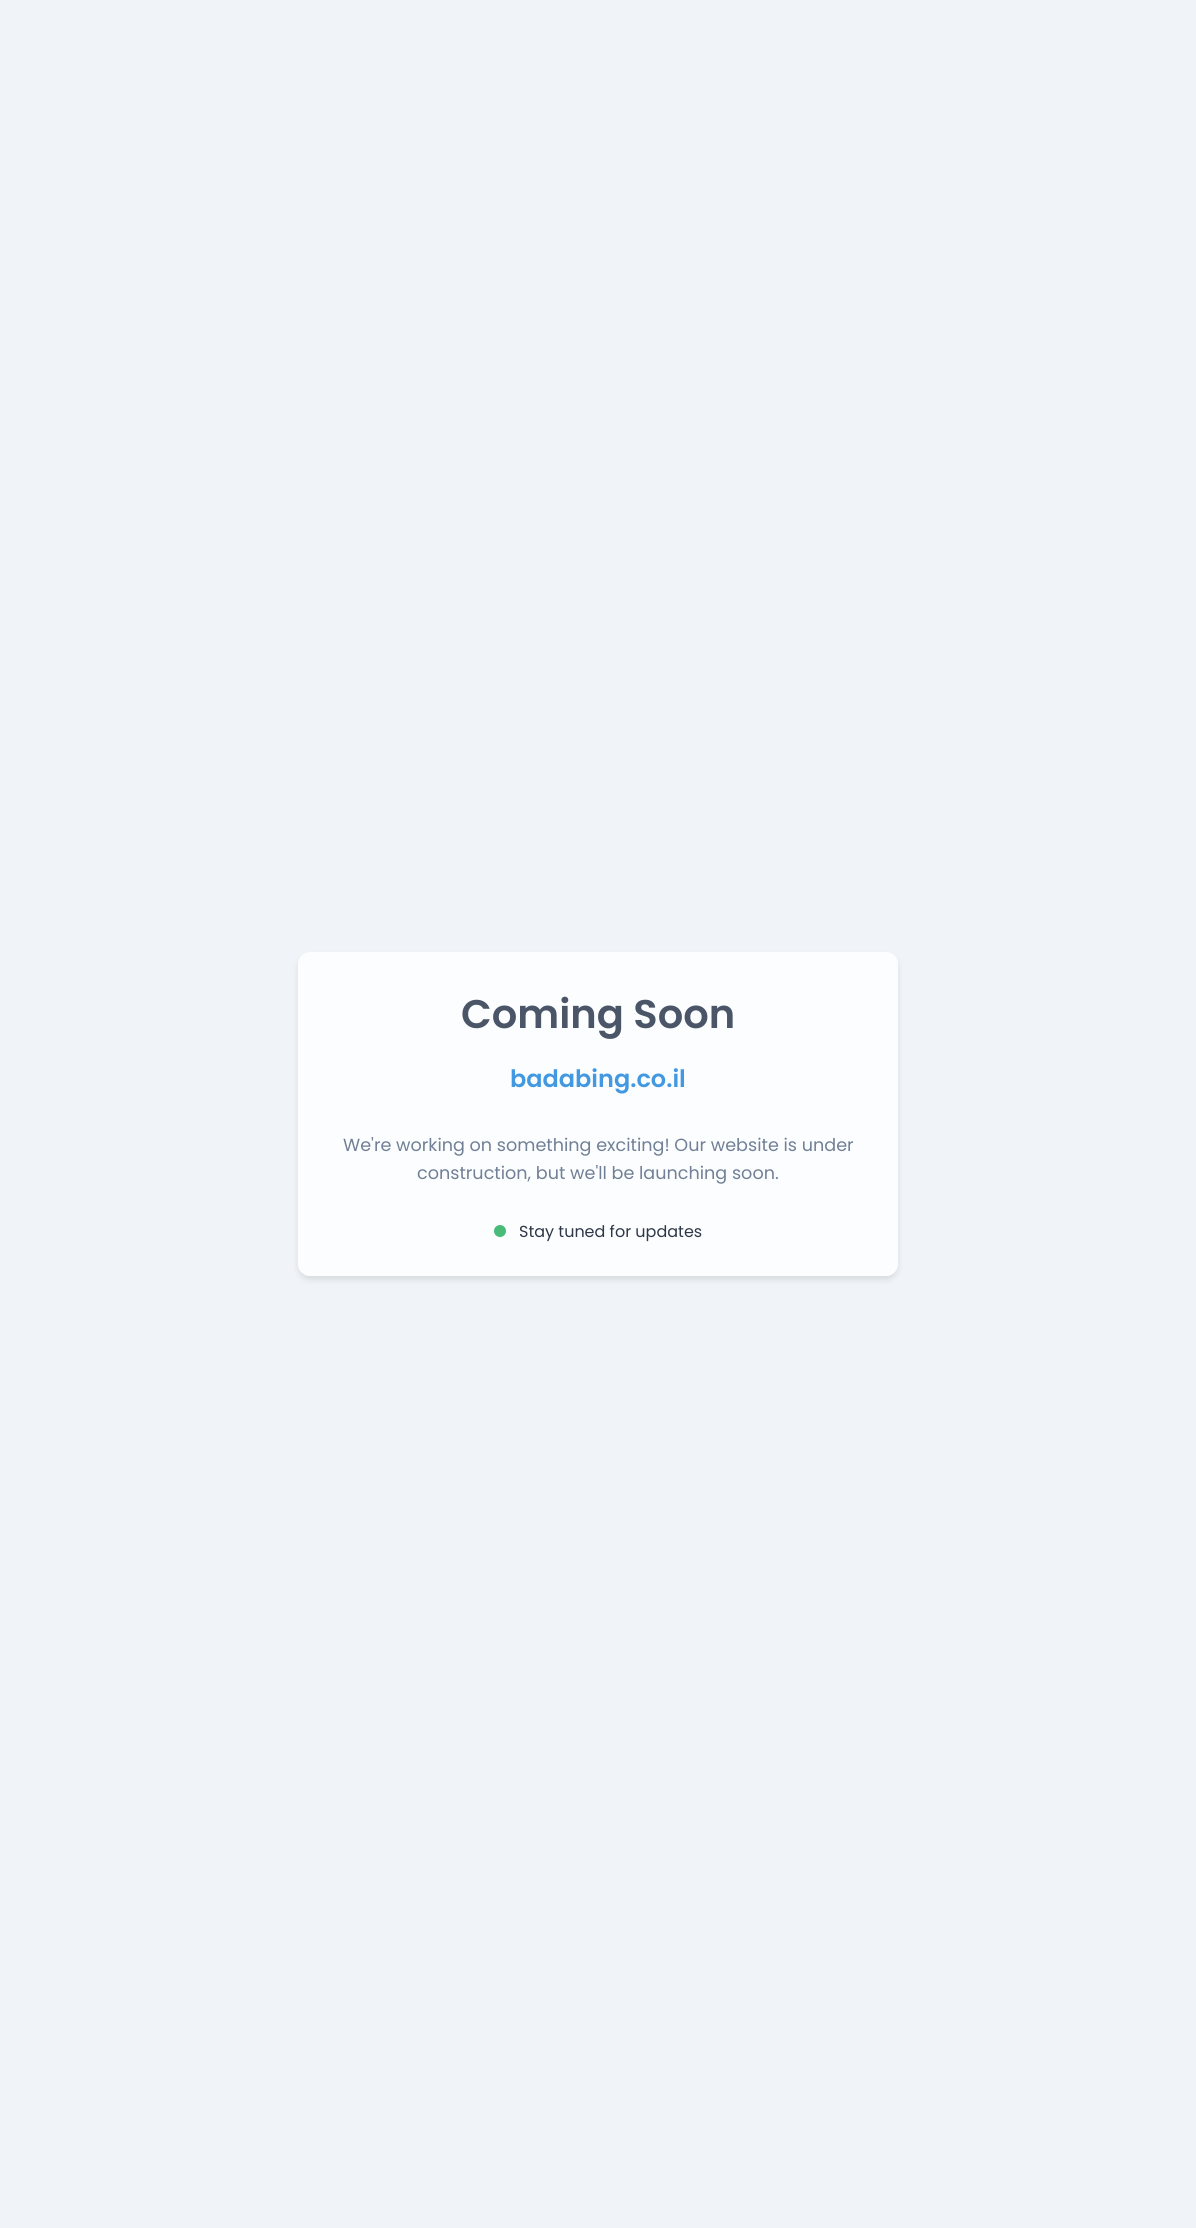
import math
import cairo

surface = cairo.ImageSurface(cairo.FORMAT_RGB24, 1196, 2228)
c = cairo.Context(surface)
options = cairo.FontOptions()
options.set_hint_metrics(cairo.HINT_METRICS_OFF)
options.set_hint_style(cairo.HINT_STYLE_NONE)
c.set_font_options(options)
c.set_miter_limit(4)
def C(code):
 c.set_source_rgb(*(v / 255 for v in bytes.fromhex(code[-6:])))
def F(family, size, italic, bold):
 c.select_font_face(family, cairo.FONT_SLANT_ITALIC if italic else cairo.FONT_SLANT_NORMAL, cairo.FONT_WEIGHT_BOLD if bold else cairo.FONT_WEIGHT_NORMAL)
 c.set_font_size(size)
def T(x, y, s):
 c.move_to(x, y)
 c.show_text(s)
def Q(x, y, w, h, r):
 c.new_sub_path()
 for i, (u, v) in enumerate([(x + w - r, y + h - r), (x + r, y + h - r), (x + r, y + r), (x + w - r, y + r)]):
  c.arc(u, v, r, i * math.pi / 2, (i + 1) * math.pi / 2)
 c.close_path()
def S(x, y, w, h, r, blur, alpha):
 c.push_group_with_content(cairo.CONTENT_ALPHA)
 c.set_operator(cairo.OPERATOR_SOURCE)
 for i in range(15, -16, -2):
  e = blur * i / 6
  if min(w, h) + 2 * e > 0:
   c.set_source_rgba(0, 0, 0, alpha * math.erfc((i - 1) / 8.5) / 2)
   Q(x - e, y - e, w + 2 * e, h + 2 * e, max(0, min(r + e + blur * .6, min(w, h) / 2 + e)))
   c.fill()
 c.mask(c.pop_group())
C('f0f4f8')
c.paint()
c.save()
c.set_fill_rule(cairo.FILL_RULE_EVEN_ODD)
c.new_path()
c.move_to(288,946)
c.line_to(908,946)
c.line_to(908,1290)
c.line_to(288,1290)
c.close_path()
c.move_to(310,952)
c.line_to(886,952)
c.curve_to(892.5,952,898,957.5,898,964)
c.line_to(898,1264)
c.curve_to(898,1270.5,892.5,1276,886,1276)
c.line_to(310,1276)
c.curve_to(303.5,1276,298,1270.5,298,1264)
c.line_to(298,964)
c.curve_to(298,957.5,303.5,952,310,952)
c.close_path()
c.clip()
C('000000')
S(298,956,600,324,12,3,.1)
c.restore()
c.set_source_rgba(1,1,1,0.8)
Q(298,952,600,324,12)
c.fill()
F('Poppins SemiBold',40,0,0)
C('4a5568')
T(461,1028,'Coming Soon')
F('Poppins SemiBold',24,0,0)
C('4299e1')
T(510,1087,'badabing.co.il')
F('Poppins',17.6,0,0)
C('718096')
T(343,1151,'We\'re working on something exciting! Our website is under')
T(417,1179,'construction, but we\'ll be launching soon.')
C('48bb78')
c.new_path()
c.arc(500,1231,6,0,2 * math.pi)
c.fill()
F('Poppins',16,0,0)
C('2d3748')
T(519,1237,'Stay tuned for updates')
surface.write_to_png('o.png')
